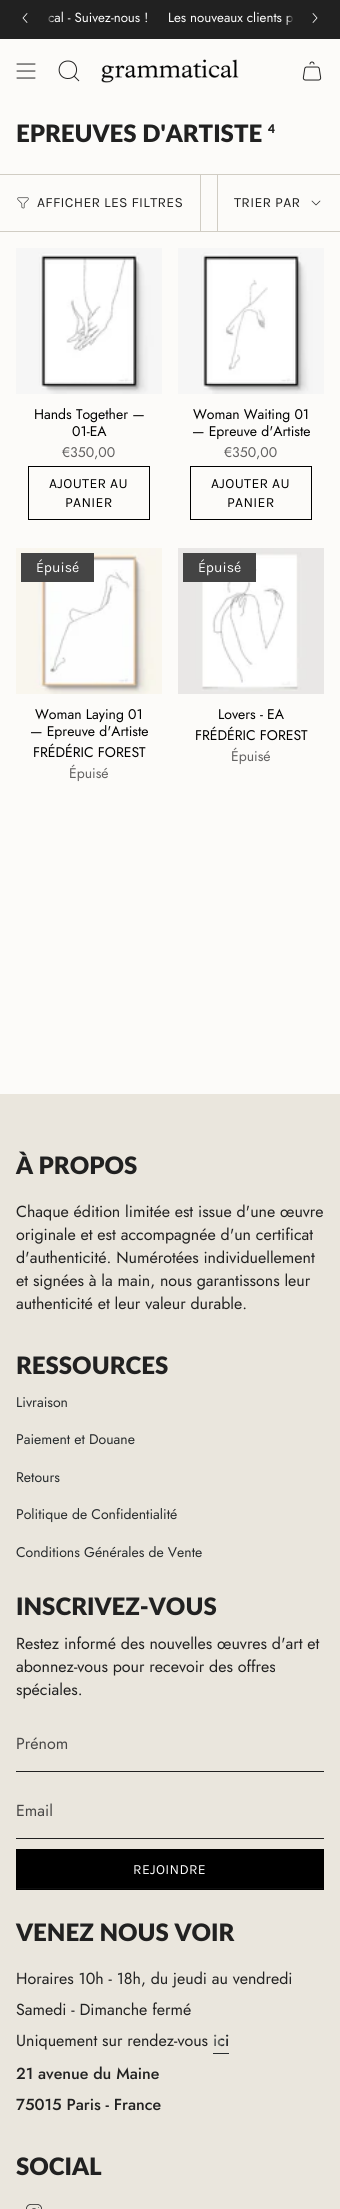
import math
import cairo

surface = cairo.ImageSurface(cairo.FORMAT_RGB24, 340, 2209)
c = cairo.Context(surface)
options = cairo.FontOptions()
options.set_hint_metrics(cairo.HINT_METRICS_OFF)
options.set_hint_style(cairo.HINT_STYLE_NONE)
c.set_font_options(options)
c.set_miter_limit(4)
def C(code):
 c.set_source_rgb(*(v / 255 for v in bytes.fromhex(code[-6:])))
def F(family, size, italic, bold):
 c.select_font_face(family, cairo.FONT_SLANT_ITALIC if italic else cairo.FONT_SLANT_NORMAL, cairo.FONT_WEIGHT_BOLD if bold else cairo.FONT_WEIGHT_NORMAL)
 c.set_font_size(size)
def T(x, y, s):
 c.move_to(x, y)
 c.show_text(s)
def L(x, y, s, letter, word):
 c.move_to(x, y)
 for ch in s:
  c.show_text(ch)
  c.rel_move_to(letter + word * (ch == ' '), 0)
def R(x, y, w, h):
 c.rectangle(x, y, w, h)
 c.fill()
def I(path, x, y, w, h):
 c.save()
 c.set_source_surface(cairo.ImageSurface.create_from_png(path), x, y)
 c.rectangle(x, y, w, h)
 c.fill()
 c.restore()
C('fcfbf9')
c.paint()
C('212121')
R(0,0,340,39)
c.new_path()
c.move_to(27,13.5)
c.line_to(23,18)
c.line_to(27,22.5)
C('ffffff')
c.set_line_width(.8)
c.set_line_cap(cairo.LINE_CAP_ROUND)
c.set_line_join(cairo.LINE_JOIN_ROUND)
c.stroke()
F('Jost',13.25,0,0)
T(48,22,'cal - Suivez-nous !')
T(168,22,'Les nouveaux clients p')
gradient = cairo.LinearGradient(16,18,54,18)
gradient.add_color_stop_rgba(.8,0.129,0.129,0.129,1)
gradient.add_color_stop_rgba(1,0.129,0.129,0.129,0)
c.set_source(gradient)
R(48,15,6,8)
gradient = cairo.LinearGradient(324,18,286,18)
gradient.add_color_stop_rgba(.8,0.129,0.129,0.129,1)
gradient.add_color_stop_rgba(1,0.129,0.129,0.129,0)
c.set_source(gradient)
R(286,15,7,10)
c.new_path()
c.move_to(313,13.5)
c.line_to(317,18)
c.line_to(313,22.5)
C('ffffff')
c.stroke()
c.new_path()
c.move_to(17,64)
c.line_to(35,64)
c.move_to(17,71)
c.line_to(35,71)
c.move_to(17,78)
c.line_to(35,78)
C('212121')
c.set_line_width(1)
c.stroke()
c.new_path()
c.move_to(68,61)
c.curve_to(79.5,61,79.5,79,67.5,78.5)
c.curve_to(56,78,56.5,61,68,61)
c.close_path()
c.move_to(74,76)
c.line_to(79,81)
c.set_line_cap(cairo.LINE_CAP_BUTT)
c.set_line_join(cairo.LINE_JOIN_MITER)
c.stroke()
I('1.png',101,59,138,24)
I('2.png',302,61,20,20)
F('Lato ExtraBold',24,0,0)
T(16,142,'EPREUVES D\'ARTISTE')
F('Lato ExtraBold',12,0,0)
T(268,133,'4')
C('d1cdc4')
R(0,174,340,1)
R(0,231,340,1)
R(200,175,1,56)
I('3.png',17,197,12,12)
F('Karla',14,0,0)
C('212121')
L(37,207,'AFFICHER LES FILTRES',.3,0)
C('d1cdc4')
R(217,175,1,56)
C('212121')
L(234,207,'TRIER PAR',.3,0)
c.new_path()
c.move_to(312,201)
c.line_to(316,205)
c.line_to(320,201)
c.set_line_width(.7)
c.set_line_cap(cairo.LINE_CAP_ROUND)
c.set_line_join(cairo.LINE_JOIN_ROUND)
c.stroke()
I('4.png',16,248,146,146)
F('Jost',14,0,0)
C('000000')
T(34,419,'Hands Together —')
T(72,436,'01-EA')
C('636262')
T(62,457,'€350,00')
c.rectangle(28.5,466.5,121,53)
C('000000')
c.set_line_width(1)
c.set_line_cap(cairo.LINE_CAP_BUTT)
c.set_line_join(cairo.LINE_JOIN_MITER)
c.stroke()
F('Karla',14,0,0)
L(49,488,'AJOUTER AU',.3,0)
L(65,507,'PANIER',.3,0)
I('5.png',178,248,146,146)
F('Jost',14,0,0)
T(193,419,'Woman Waiting 01')
T(192,436,'— Epreuve d\'Artiste')
C('636262')
T(224,457,'€350,00')
c.rectangle(190.5,466.5,121,53)
C('000000')
c.stroke()
F('Karla',14,0,0)
L(211,488,'AJOUTER AU',.3,0)
L(227,507,'PANIER',.3,0)
I('6.png',16,548,146,146)
C('444444')
R(21,553,73,29)
C('ffffff')
T(36,572,'Épuisé')
F('Jost',14,0,0)
C('000000')
T(35,719,'Woman Laying 01')
T(30,736,'— Epreuve d\'Artiste')
T(33,757,'FRÉDÉRIC FOREST')
C('636262')
T(69,778,'Épuisé')
I('7.png',178,548,146,146)
C('444444')
R(183,553,73,29)
F('Karla',14,0,0)
C('ffffff')
T(198,572,'Épuisé')
F('Jost',14,0,0)
C('000000')
T(218,719,'Lovers - EA')
T(195,740,'FRÉDÉRIC FOREST')
C('636262')
T(231,761,'Épuisé')
C('eae6dd')
R(0,1094,340,1115)
F('Lato ExtraBold',24,0,0)
C('212121')
T(16,1174,'À PROPOS')
F('Jost',16,0,0)
T(16,1217,'Chaque édition limitée est issue d\'une œuvre')
T(16,1240,'originale et est accompagnée d\'un certificat')
T(16,1263,'d\'authenticité. Numérotées individuellement')
T(16,1286,'et signées à la main, nous garantissons leur')
T(16,1309,'authenticité et leur valeur durable.')
F('Lato ExtraBold',24,0,0)
T(16,1374,'RESSOURCES')
F('Jost',14,0,0)
C('282c2e')
T(16,1407,'Livraison')
T(16,1444,'Paiement et Douane')
T(16,1482,'Retours')
T(16,1519,'Politique de Confidentialité')
T(16,1557,'Conditions Générales de Vente')
F('Lato ExtraBold',24,0,0)
C('212121')
T(16,1615,'INSCRIVEZ-VOUS')
F('Jost',16,0,0)
T(16,1649,'Restez informé des nouvelles œuvres d\'art et')
T(16,1672,'abonnez-vous pour recevoir des offres')
T(16,1695,'spéciales.')
R(16,1771,308,1)
C('494847')
T(16,1749,'Prénom')
C('212121')
R(16,1838,308,1)
C('494847')
T(16,1816,'Email')
C('000000')
R(16,1849,308,41)
F('Karla',14,0,0)
C('ffffff')
L(133,1874,'REJOINDRE',.3,0)
C('0d0d0d')
R(17,1888,306,1)
F('Lato ExtraBold',24,0,0)
C('212121')
T(16,1941,'VENEZ NOUS VOIR')
F('Jost',16,0,0)
T(16,1984,'Horaires 10h - 18h, du jeudi au vendredi')
T(16,2015,'Samedi - Dimanche fermé')
T(16,2046,'Uniquement sur rendez-vous')
F('Jost Medium',16,0,0)
gradient = cairo.LinearGradient(213,2041,229,2041)
gradient.add_color_stop_rgba(0,0.384,0.392,0.388,1)
gradient.add_color_stop_rgba(.5,0.384,0.392,0.388,1)
gradient.add_color_stop_rgba(.5,0.157,0.173,0.18,1)
gradient.add_color_stop_rgba(1,0.157,0.173,0.18,1)
c.set_source(gradient)
T(213,2046,'ici')
C('282c2e')
R(213,2053,16,1)
C('212121')
T(16,2079,'21 avenue du Maine')
T(16,2110,'75015 Paris - France')
F('Lato ExtraBold',24,0,0)
T(16,2175,'SOCIAL')
I('8.png',26,2204,16,5)
surface.write_to_png('o.png')
